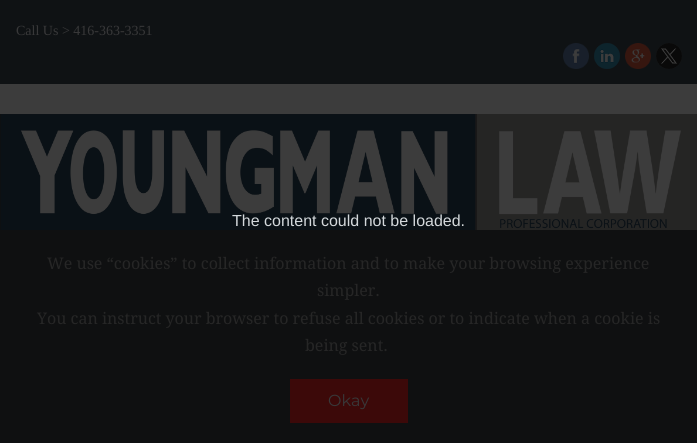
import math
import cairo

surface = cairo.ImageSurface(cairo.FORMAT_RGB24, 697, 443)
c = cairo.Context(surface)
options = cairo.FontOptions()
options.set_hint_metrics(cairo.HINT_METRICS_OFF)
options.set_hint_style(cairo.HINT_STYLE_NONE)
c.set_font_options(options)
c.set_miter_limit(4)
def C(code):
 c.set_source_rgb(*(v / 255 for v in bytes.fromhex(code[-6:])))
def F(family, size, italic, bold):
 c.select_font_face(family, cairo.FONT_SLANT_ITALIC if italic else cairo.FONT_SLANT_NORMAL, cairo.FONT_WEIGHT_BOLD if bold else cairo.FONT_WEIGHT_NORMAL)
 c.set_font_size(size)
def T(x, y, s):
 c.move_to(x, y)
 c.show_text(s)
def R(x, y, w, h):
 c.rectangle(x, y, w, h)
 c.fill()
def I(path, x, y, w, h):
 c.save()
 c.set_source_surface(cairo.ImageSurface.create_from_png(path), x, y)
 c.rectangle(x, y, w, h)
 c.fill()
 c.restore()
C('3c3c3c')
c.paint()
C('0f1214')
R(0,0,697,84)
F('Liberation Serif',14,0,0)
C('383839')
T(16,35,'Call Us > 416-363-3351')
I('1.png',563,43,26,26)
I('2.png',594,43,26,26)
I('3.png',625,43,26,26)
I('4.png',656,43,26,26)
I('5.png',0,114,697,116)
F('Liberation Sans',16,0,0)
C('d3d8db')
T(232,226,'The content could not be loaded.')
C('0f1011')
R(0,230,697,213)
F('Droid Serif',16,0,0)
C('262626')
T(47,269,'We use “cookies” to collect information and to make your browsing experience')
T(317,296,'simpler.')
T(37,324,'You can instruct your browser to refuse all cookies or to indicate when a cookie is')
T(305,351,'being sent.')
C('3c0909')
R(290,379,118,44)
F('Montserrat',16,0,0)
C('383839')
T(328,406,'Okay')
surface.write_to_png('o.png')
